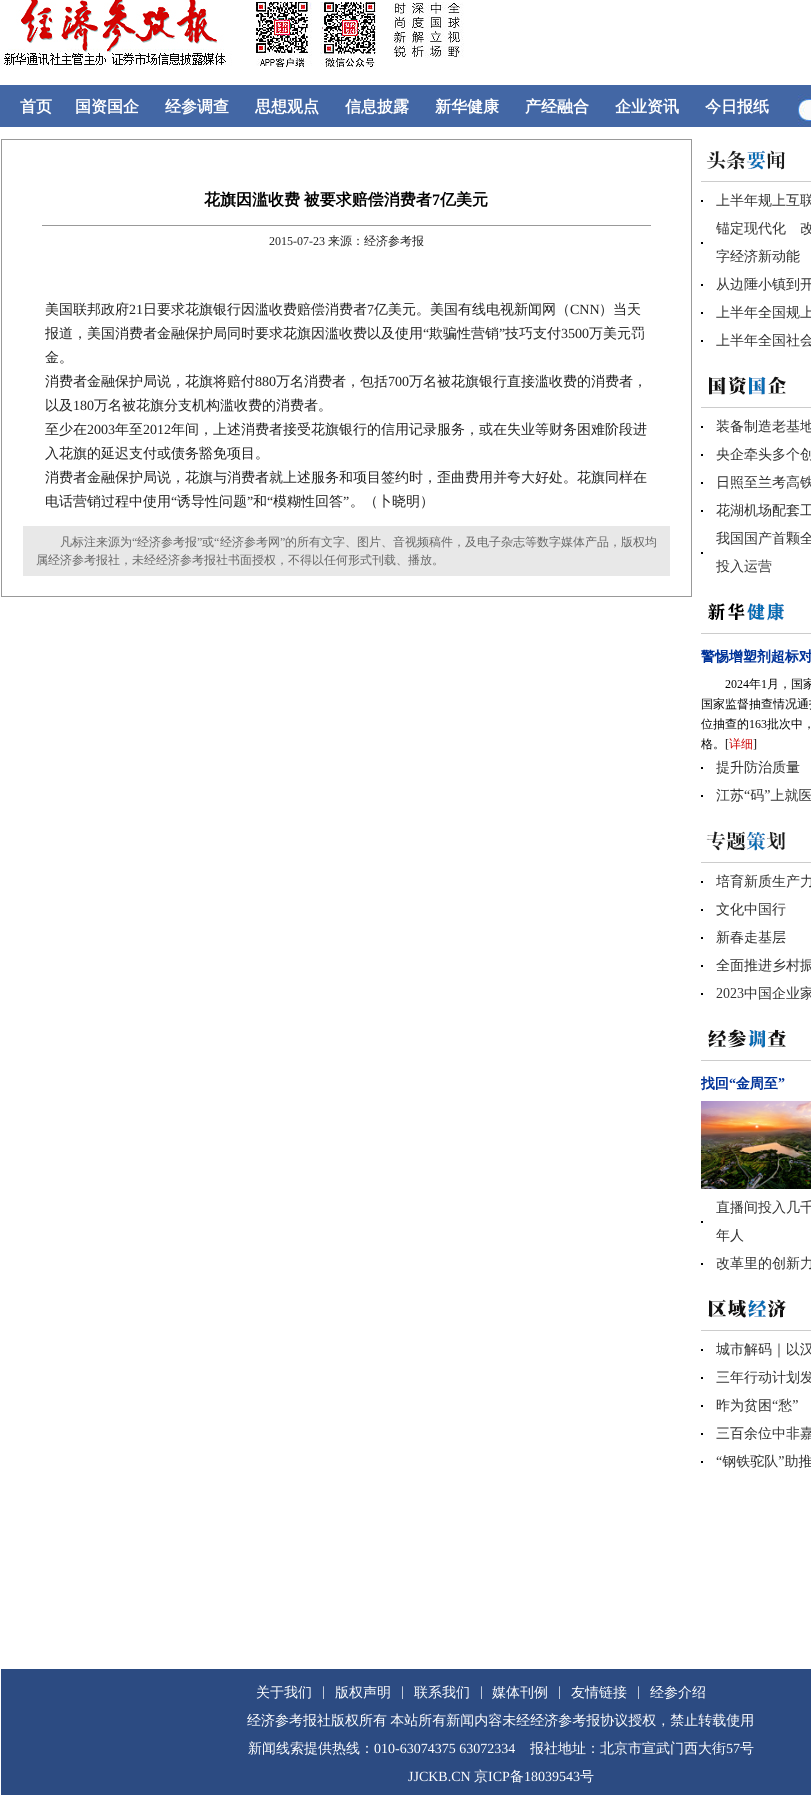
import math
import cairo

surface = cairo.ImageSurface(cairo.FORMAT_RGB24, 811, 1795)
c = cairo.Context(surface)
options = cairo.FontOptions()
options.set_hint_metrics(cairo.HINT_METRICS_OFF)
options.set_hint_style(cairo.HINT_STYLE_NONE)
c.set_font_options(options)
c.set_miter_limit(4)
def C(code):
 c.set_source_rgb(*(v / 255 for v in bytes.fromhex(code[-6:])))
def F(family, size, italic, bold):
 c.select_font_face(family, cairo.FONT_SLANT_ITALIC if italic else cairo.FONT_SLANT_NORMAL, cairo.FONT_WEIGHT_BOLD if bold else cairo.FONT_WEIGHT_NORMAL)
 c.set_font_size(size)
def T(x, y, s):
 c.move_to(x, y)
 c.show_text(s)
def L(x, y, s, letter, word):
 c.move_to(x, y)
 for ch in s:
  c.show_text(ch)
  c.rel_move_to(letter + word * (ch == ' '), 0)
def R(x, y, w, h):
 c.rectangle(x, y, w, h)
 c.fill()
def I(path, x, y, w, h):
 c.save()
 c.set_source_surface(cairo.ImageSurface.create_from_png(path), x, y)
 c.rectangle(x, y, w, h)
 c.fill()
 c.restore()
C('ffffff')
c.paint()
I('1.png',0,0,464,70)
C('4367a5')
R(0,85,811,42)
F('WenQuanYi Zen Hei',16,0,1)
C('ffffff')
T(20,112,'首页')
T(75,112,'国资国企')
T(165,112,'经参调查')
T(255,112,'思想观点')
T(345,112,'信息披露')
T(435,112,'新华健康')
T(525,112,'产经融合')
T(615,112,'企业资讯')
T(705,112,'今日报纸')
I('2.png',798,94,13,32)
c.rectangle(1.5,139.5,690,457)
C('999999')
c.set_line_width(1)
c.stroke()
C('000000')
L(204,205,'花旗因滥收费 被要求赔偿消费者',0,-1)
F('Liberation Serif',16,0,1)
T(432,205,'7')
F('WenQuanYi Zen Hei',16,0,1)
T(440,205,'亿美元')
C('999999')
R(42,225,609,1)
F('Liberation Serif',12,0,0)
C('222222')
T(269,245,'2015-07-23')
F('WenQuanYi Zen Hei Medium',12,0,0)
T(328,245,'来源：经济参考报')
F('WenQuanYi Zen Hei Medium',14,0,0)
T(45,314,'美国联邦政府')
F('Liberation Serif',14,0,0)
T(129,314,'21')
F('WenQuanYi Zen Hei Medium',14,0,0)
T(143,314,'日要求花旗银行因滥收费赔偿消费者')
F('Liberation Serif',14,0,0)
T(367,314,'7')
F('WenQuanYi Zen Hei Medium',14,0,0)
T(374,314,'亿美元。美国有线电视新闻网（')
F('Liberation Serif',14,0,0)
T(570,314,'CNN')
F('WenQuanYi Zen Hei Medium',14,0,0)
T(599,314,'）当天')
T(45,338,'报道，美国消费者金融保护局同时要求花旗因滥收费以及使用')
F('Liberation Serif',14,0,0)
T(423,338,'“')
F('WenQuanYi Zen Hei Medium',14,0,0)
T(429,338,'欺骗性营销')
F('Liberation Serif',14,0,0)
T(499,338,'”')
F('WenQuanYi Zen Hei Medium',14,0,0)
T(505,338,'技巧支付')
F('Liberation Serif',14,0,0)
T(561,338,'3500')
F('WenQuanYi Zen Hei Medium',14,0,0)
T(589,338,'万美元罚')
T(45,362,'金。')
T(45,386,'消费者金融保护局说，花旗将赔付')
F('Liberation Serif',14,0,0)
T(255,386,'880')
F('WenQuanYi Zen Hei Medium',14,0,0)
T(276,386,'万名消费者，包括')
F('Liberation Serif',14,0,0)
T(388,386,'700')
F('WenQuanYi Zen Hei Medium',14,0,0)
T(409,386,'万名被花旗银行直接滥收费的消费者，')
T(45,410,'以及')
F('Liberation Serif',14,0,0)
T(73,410,'180')
F('WenQuanYi Zen Hei Medium',14,0,0)
T(94,410,'万名被花旗分支机构滥收费的消费者。')
T(45,434,'至少在')
F('Liberation Serif',14,0,0)
T(87,434,'2003')
F('WenQuanYi Zen Hei Medium',14,0,0)
T(115,434,'年至')
F('Liberation Serif',14,0,0)
T(143,434,'2012')
F('WenQuanYi Zen Hei Medium',14,0,0)
T(171,434,'年间，上述消费者接受花旗银行的信用记录服务，或在失业等财务困难阶段进')
T(45,458,'入花旗的延迟支付或债务豁免项目。')
T(45,482,'消费者金融保护局说，花旗与消费者就上述服务和项目签约时，歪曲费用并夸大好处。花旗同样在')
T(45,506,'电话营销过程中使用')
F('Liberation Serif',14,0,0)
T(171,506,'“')
F('WenQuanYi Zen Hei Medium',14,0,0)
T(177,506,'诱导性问题')
F('Liberation Serif',14,0,0)
T(247,506,'”')
F('WenQuanYi Zen Hei Medium',14,0,0)
T(253,506,'和')
F('Liberation Serif',14,0,0)
T(267,506,'“')
F('WenQuanYi Zen Hei Medium',14,0,0)
T(273,506,'模糊性回答')
F('Liberation Serif',14,0,0)
T(343,506,'”')
F('WenQuanYi Zen Hei Medium',14,0,0)
T(350,506,'。（卜晓明）')
C('e8e8e8')
R(23,526,647,50)
F('WenQuanYi Zen Hei Medium',12,0,0)
C('666666')
T(60,546,'凡标注来源为')
F('Liberation Serif',12,0,0)
T(132,546,'“')
F('WenQuanYi Zen Hei Medium',12,0,0)
T(137,546,'经济参考报')
F('Liberation Serif',12,0,0)
T(197,546,'”')
F('WenQuanYi Zen Hei Medium',12,0,0)
T(202,546,'或')
F('Liberation Serif',12,0,0)
T(214,546,'“')
F('WenQuanYi Zen Hei Medium',12,0,0)
T(220,546,'经济参考网')
F('Liberation Serif',12,0,0)
T(280,546,'”')
F('WenQuanYi Zen Hei Medium',12,0,0)
T(285,546,'的所有文字、图片、音视频稿件，及电子杂志等数字媒体产品，版权均')
T(36,564,'属经济参考报社，未经经济参考报社书面授权，不得以任何形式刊载、播放。')
I('3.png',701,150,110,1318)
C('2c4b82')
R(1,1669,810,126)
F('WenQuanYi Zen Hei Medium',14,0,0)
C('ffffff')
T(256,1697,'关于我们')
F('Liberation Serif',14,0,0)
T(322,1696,'|')
F('WenQuanYi Zen Hei Medium',14,0,0)
T(335,1697,'版权声明')
F('Liberation Serif',14,0,0)
T(401,1696,'|')
F('WenQuanYi Zen Hei Medium',14,0,0)
T(414,1697,'联系我们')
F('Liberation Serif',14,0,0)
T(480,1696,'|')
F('WenQuanYi Zen Hei Medium',14,0,0)
T(492,1697,'媒体刊例')
F('Liberation Serif',14,0,0)
T(558,1696,'|')
F('WenQuanYi Zen Hei Medium',14,0,0)
T(571,1697,'友情链接')
F('Liberation Serif',14,0,0)
T(637,1696,'|')
F('WenQuanYi Zen Hei Medium',14,0,0)
T(650,1697,'经参介绍')
L(247,1725,'经济参考报社版权所有 本站所有新闻内容未经经济参考报协议授权，禁止转载使用',0,-1)
T(248,1753,'新闻线索提供热线：')
F('Liberation Serif',14,0,0)
T(374,1753,'010-63074375 63072334')
F('WenQuanYi Zen Hei Medium',14,0,0)
T(530,1753,'报社地址：北京市宣武门西大街')
F('Liberation Serif',14,0,0)
T(726,1753,'57')
F('WenQuanYi Zen Hei Medium',14,0,0)
T(740,1753,'号')
F('Liberation Serif',14,0,0)
T(408,1781,'JJCKB.CN')
F('WenQuanYi Zen Hei Medium',14,0,0)
T(474,1781,'京')
F('Liberation Serif',14,0,0)
T(488,1781,'ICP')
F('WenQuanYi Zen Hei Medium',14,0,0)
T(510,1781,'备')
F('Liberation Serif',14,0,0)
T(524,1781,'18039543')
F('WenQuanYi Zen Hei Medium',14,0,0)
T(580,1781,'号')
surface.write_to_png('o.png')
